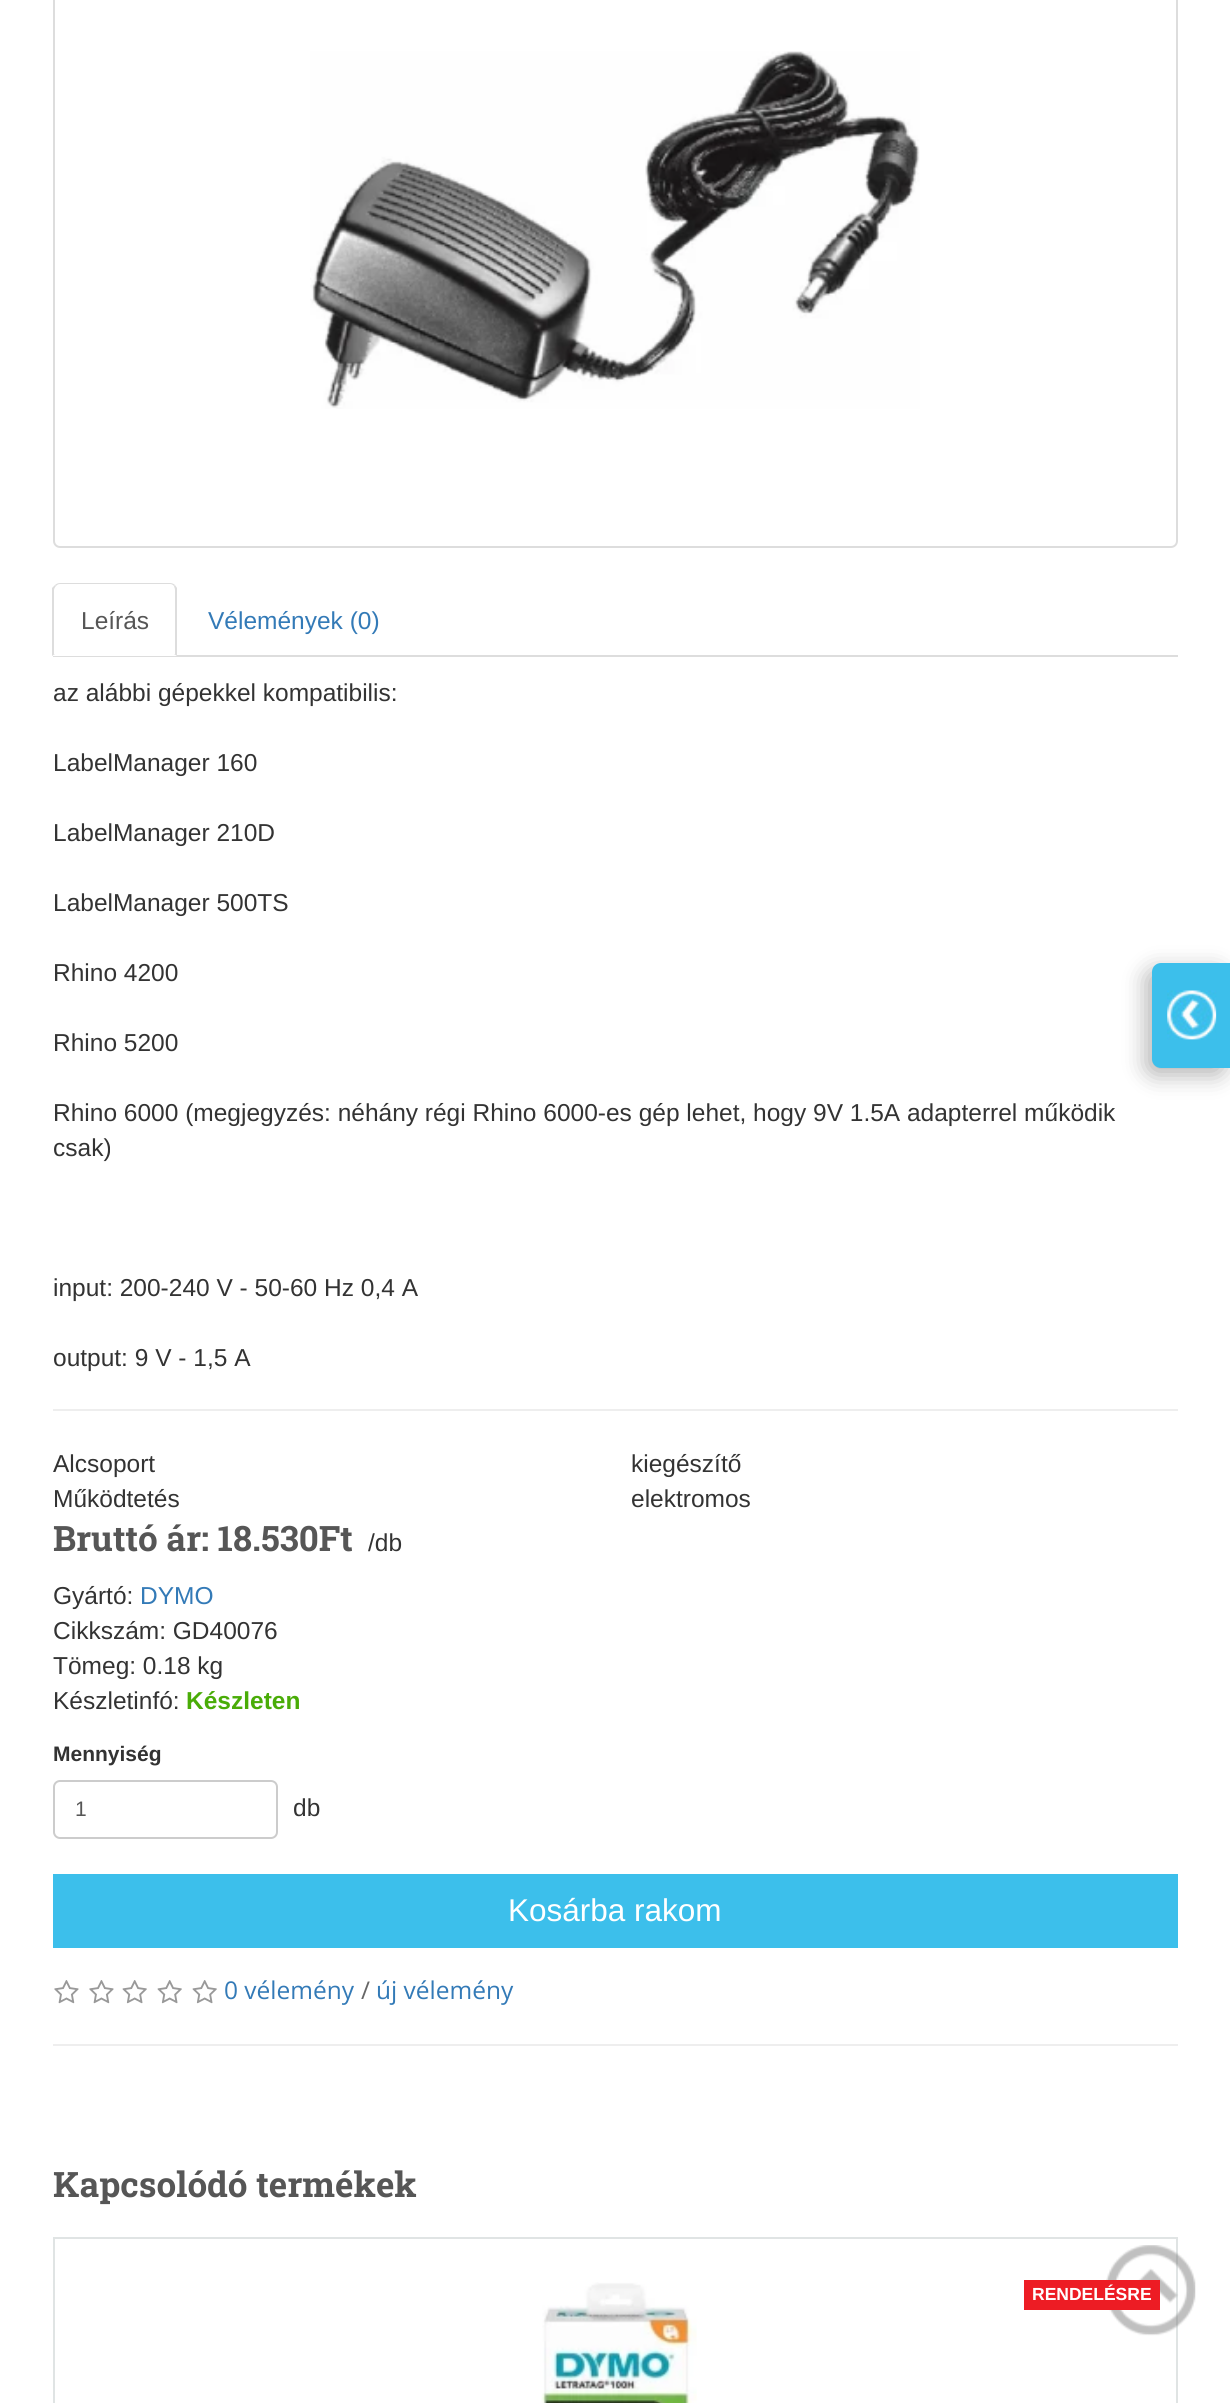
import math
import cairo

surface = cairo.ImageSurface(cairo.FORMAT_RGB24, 1230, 2403)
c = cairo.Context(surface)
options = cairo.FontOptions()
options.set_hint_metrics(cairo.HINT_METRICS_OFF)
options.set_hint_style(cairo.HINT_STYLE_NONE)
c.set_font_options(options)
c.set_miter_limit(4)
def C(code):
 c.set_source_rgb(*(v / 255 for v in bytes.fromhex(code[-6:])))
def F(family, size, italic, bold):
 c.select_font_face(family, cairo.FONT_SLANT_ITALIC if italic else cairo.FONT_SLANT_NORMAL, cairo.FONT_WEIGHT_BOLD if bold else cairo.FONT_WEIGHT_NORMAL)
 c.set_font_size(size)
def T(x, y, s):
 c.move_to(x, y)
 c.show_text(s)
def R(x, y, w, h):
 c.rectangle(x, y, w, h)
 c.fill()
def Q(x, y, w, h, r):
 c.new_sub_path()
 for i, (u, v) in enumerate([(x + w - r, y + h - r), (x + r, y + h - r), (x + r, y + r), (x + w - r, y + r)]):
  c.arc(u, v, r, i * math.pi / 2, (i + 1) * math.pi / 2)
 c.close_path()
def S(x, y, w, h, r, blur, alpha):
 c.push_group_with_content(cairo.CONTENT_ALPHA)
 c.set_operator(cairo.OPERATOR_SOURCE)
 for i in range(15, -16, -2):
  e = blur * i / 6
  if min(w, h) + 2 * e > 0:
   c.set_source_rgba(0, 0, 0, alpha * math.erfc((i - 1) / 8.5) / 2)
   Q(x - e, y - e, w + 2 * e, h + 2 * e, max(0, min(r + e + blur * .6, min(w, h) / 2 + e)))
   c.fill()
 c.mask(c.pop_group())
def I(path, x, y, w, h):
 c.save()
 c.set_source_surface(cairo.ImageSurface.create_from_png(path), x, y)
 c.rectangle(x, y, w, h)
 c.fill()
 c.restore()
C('ffffff')
c.paint()
Q(54,-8,1123,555,6)
C('dddddd')
c.stroke()
I('1.png',310,51,610,358)
R(53,655,1125,2)
C('ffffff')
c.new_path()
c.move_to(60,583)
c.line_to(170,583)
c.curve_to(174,583,177,586,177,590)
c.line_to(177,656)
c.line_to(53,656)
c.line_to(53,590)
c.curve_to(53,586,56,583,60,583)
c.close_path()
c.fill()
C('dddddd')
c.new_path()
c.move_to(60,583)
c.curve_to(58,583,56,584,55,585)
c.line_to(56,586)
c.curve_to(57,585,58,584,60,584)
c.line_to(170,584)
c.curve_to(172,584,173,585,174,586)
c.line_to(175,585)
c.curve_to(174,584,172,583,170,583)
c.close_path()
c.fill()
c.new_path()
c.move_to(175,585)
c.line_to(177,588)
c.line_to(177,656)
c.line_to(174,654)
c.line_to(175,654)
c.line_to(175,590)
c.curve_to(175,588,174,587,174,586)
c.close_path()
c.fill()
c.new_path()
c.move_to(52,588)
c.line_to(55,585)
c.line_to(56,586)
c.curve_to(55,587,54,589,54,590)
c.line_to(54,654)
c.line_to(55,654)
c.line_to(52,656)
c.close_path()
c.fill()
F('Liberation Sans',24.5,0,0)
C('565656')
T(81,629,'Leírás')
C('337ab7')
T(208,629,'Vélemények (0)')
C('333333')
T(53,701,'az alábbi gépekkel kompatibilis:')
T(53,771,'LabelManager 160')
T(53,841,'LabelManager 210D')
T(53,911,'LabelManager 500TS')
T(53,981,'Rhino 4200')
T(53,1051,'Rhino 5200')
T(53,1121,'Rhino 6000 (megjegyzés: néhány régi Rhino 6000-es gép lehet, hogy 9V 1.5A adapterrel működik')
T(53,1156,'csak)')
T(53,1296,'input: 200-240 V - 50-60 Hz 0,4 A')
T(53,1366,'output: 9 V - 1,5 A')
C('eeeeee')
R(53,1409,1125,2)
C('333333')
T(53,1472,'Alcsoport')
T(631,1472,'kiegészítő')
T(53,1507,'Működtetés')
T(631,1507,'elektromos')
F('Roboto Slab',35,0,1)
C('565656')
T(53,1551,'Bruttó ár: 18.530Ft')
F('Liberation Sans',24.5,0,0)
C('333333')
T(368,1551,'/db')
T(53,1604,'Gyártó:')
C('337ab7')
T(140,1604,'DYMO')
C('333333')
T(53,1639,'Cikkszám: GD40076')
T(53,1674,'Tömeg: 0.18 kg')
T(53,1709,'Készletinfó:')
F('Liberation Sans',24.5,0,1)
C('49ac07')
T(186,1709,'Készleten')
F('Liberation Sans',21,0,1)
C('333333')
T(53,1761,'Mennyiség')
Q(54,1781,223,57,6)
C('cccccc')
c.stroke()
F('Liberation Sans',21,0,0)
C('565656')
T(75,1816,'1')
F('Liberation Sans',24.5,0,0)
C('333333')
T(293,1816,'db')
C('3cbfeb')
R(53,1874,1125,74)
F('Liberation Sans',31.5,0,0)
C('ffffff')
T(508,1921,'Kosárba rakom')
I('2.png',54,1980,25,24)
I('2.png',89,1980,25,24)
I('3.png',122,1980,25,24)
I('3.png',157,1980,25,24)
I('3.png',192,1980,25,24)
F('Open Sans',24.5,0,0)
C('337ab7')
T(224,1999,'0 vélemény')
C('666666')
T(361,1999,'/')
C('337ab7')
T(376,1999,'új vélemény')
C('eeeeee')
R(53,2044,1125,2)
F('Roboto Slab',35,0,1)
C('565656')
T(53,2197,'Kapcsolódó termékek')
c.rectangle(54,2238,1123,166)
C('e0e4e4')
c.stroke()
I('4.png',541,2282,156,121)
I('6.png',1106,2245,90,91)
C('ed1c24')
R(1024,2280,136,30)
F('Liberation Sans',17.5,0,1)
C('ffffff')
T(1032,2300,'RENDELÉSRE')
C('000000')
S(1146,970,79,105,9,11.5,.3)
C('3cbfeb')
c.new_path()
c.move_to(1161,963)
c.line_to(1230,963)
c.line_to(1230,1068)
c.line_to(1161,1068)
c.curve_to(1156,1068,1152,1064,1152,1059)
c.line_to(1152,972)
c.curve_to(1152,967,1156,963,1161,963)
c.close_path()
c.fill()
I('5.png',1167,990,50,50)
surface.write_to_png('o.png')
